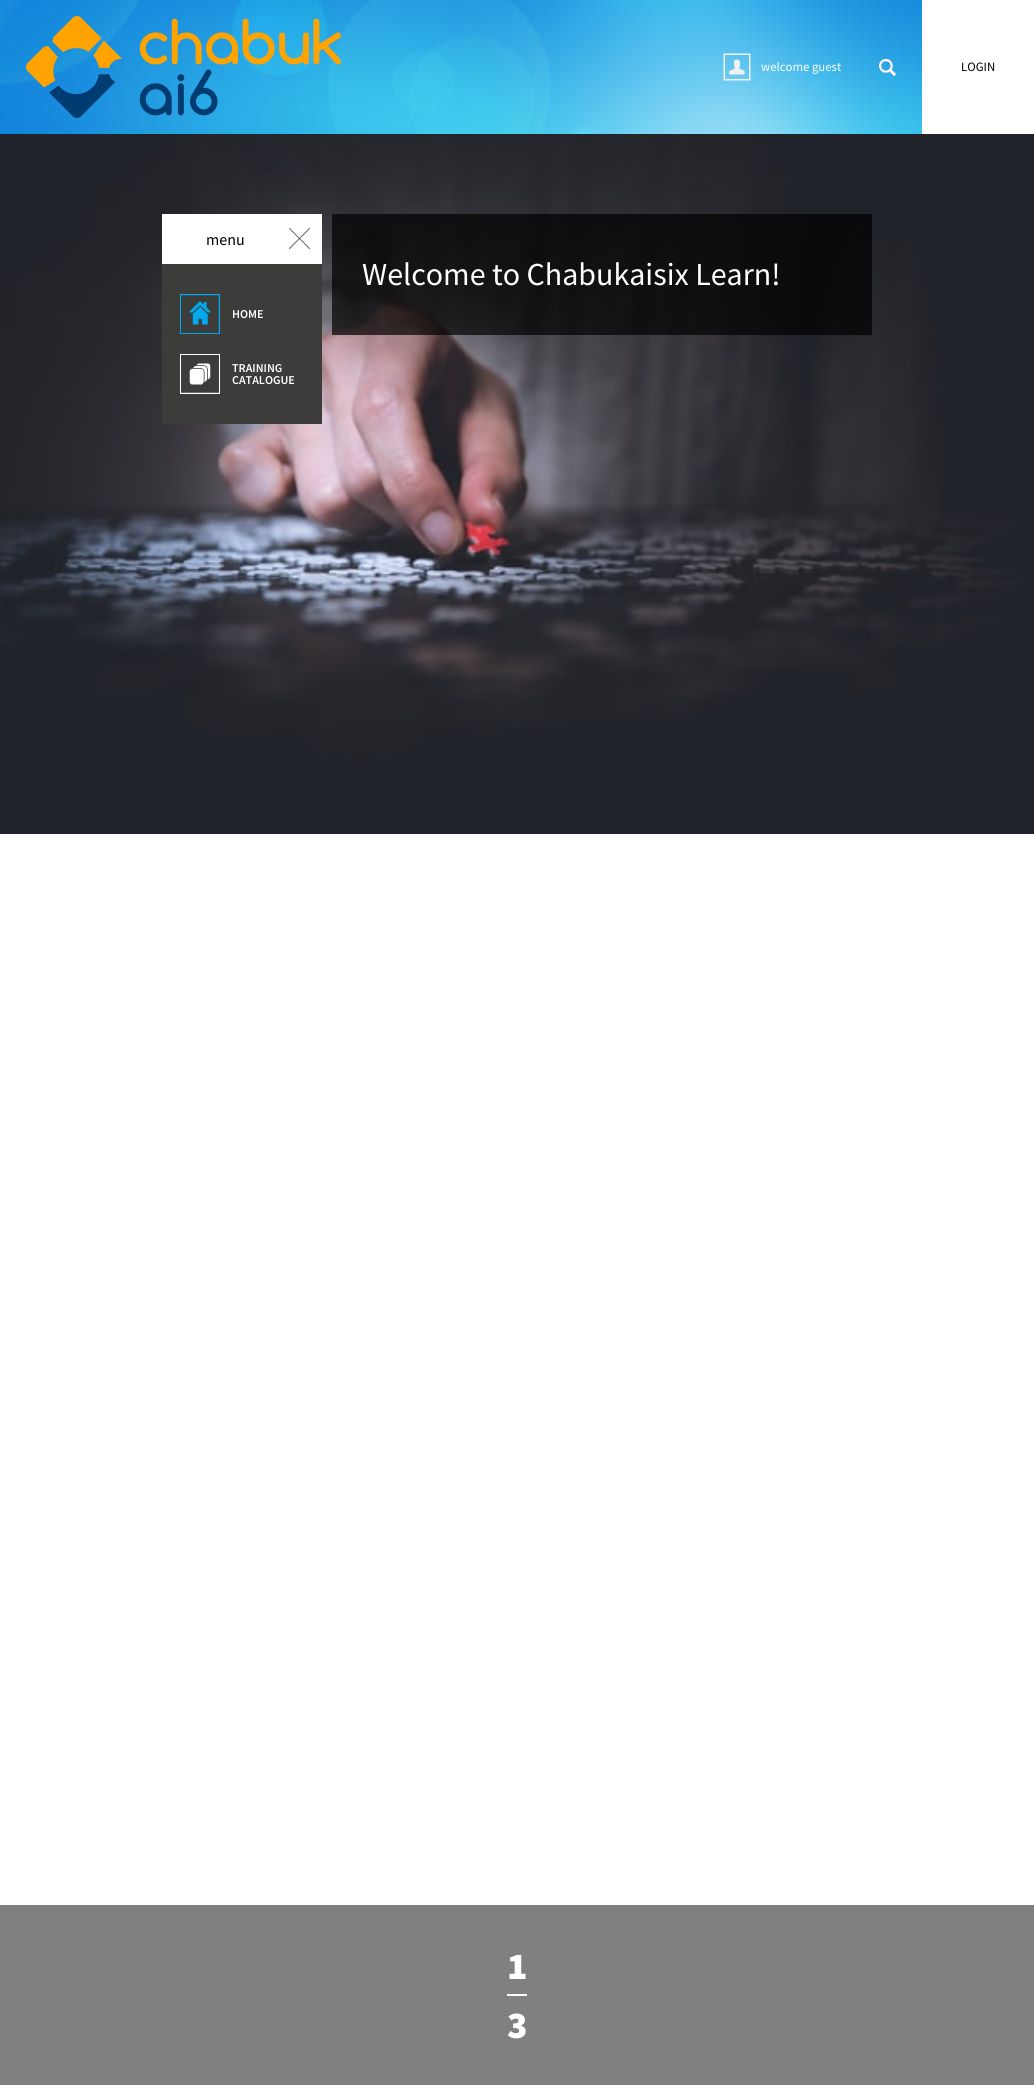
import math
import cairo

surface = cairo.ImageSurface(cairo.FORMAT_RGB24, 1034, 2085)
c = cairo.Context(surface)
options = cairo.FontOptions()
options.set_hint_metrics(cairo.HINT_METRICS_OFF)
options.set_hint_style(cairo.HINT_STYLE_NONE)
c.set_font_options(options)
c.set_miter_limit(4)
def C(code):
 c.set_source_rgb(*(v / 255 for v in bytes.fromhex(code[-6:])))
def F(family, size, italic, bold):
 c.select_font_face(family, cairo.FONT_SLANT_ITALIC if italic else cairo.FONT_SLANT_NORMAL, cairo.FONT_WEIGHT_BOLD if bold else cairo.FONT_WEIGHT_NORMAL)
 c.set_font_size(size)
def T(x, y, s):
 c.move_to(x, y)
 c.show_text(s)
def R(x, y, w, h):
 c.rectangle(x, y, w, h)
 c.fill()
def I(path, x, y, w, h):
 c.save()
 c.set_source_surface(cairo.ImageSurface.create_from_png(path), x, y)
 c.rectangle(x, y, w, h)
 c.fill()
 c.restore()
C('ffffff')
c.paint()
I('1.png',0,0,922,134)
I('2.png',26,16,315,102)
I('3.png',723,53,28,28)
F('Source Sans Pro',12.75,0,0)
C('ffffff')
T(761,71,'welcome guest')
I('4.png',879,59,17,17)
C('000000')
T(961,71,'LOGIN')
I('8.png',0,134,1034,700)
C('ffffff')
R(162,214,160,50)
F('Source Sans Pro',16,0,0)
C('000000')
T(206,245,'menu')
I('5.png',289,228,21,21)
C('3c3c3b')
R(162,264,160,160)
I('6.png',180,294,40,40)
F('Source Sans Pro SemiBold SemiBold',12,0,0)
C('ffffff')
T(232,318,'HOME')
I('7.png',180,354,40,40)
T(232,372,'TRAINING')
T(232,384,'CATALOGUE')
c.set_source_rgba(0,0,0,0.7)
R(332,214,540,121)
F('Source Sans Pro',32,0,0)
C('ffffff')
T(362,285,'Welcome to Chabukaisix Learn!')
C('808080')
R(0,1905,1034,180)
C('ffffff')
R(507,1994,20,2)
F('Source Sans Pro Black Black',38,0,0)
T(507,1979,'1')
T(507,2038,'3')
surface.write_to_png('o.png')
